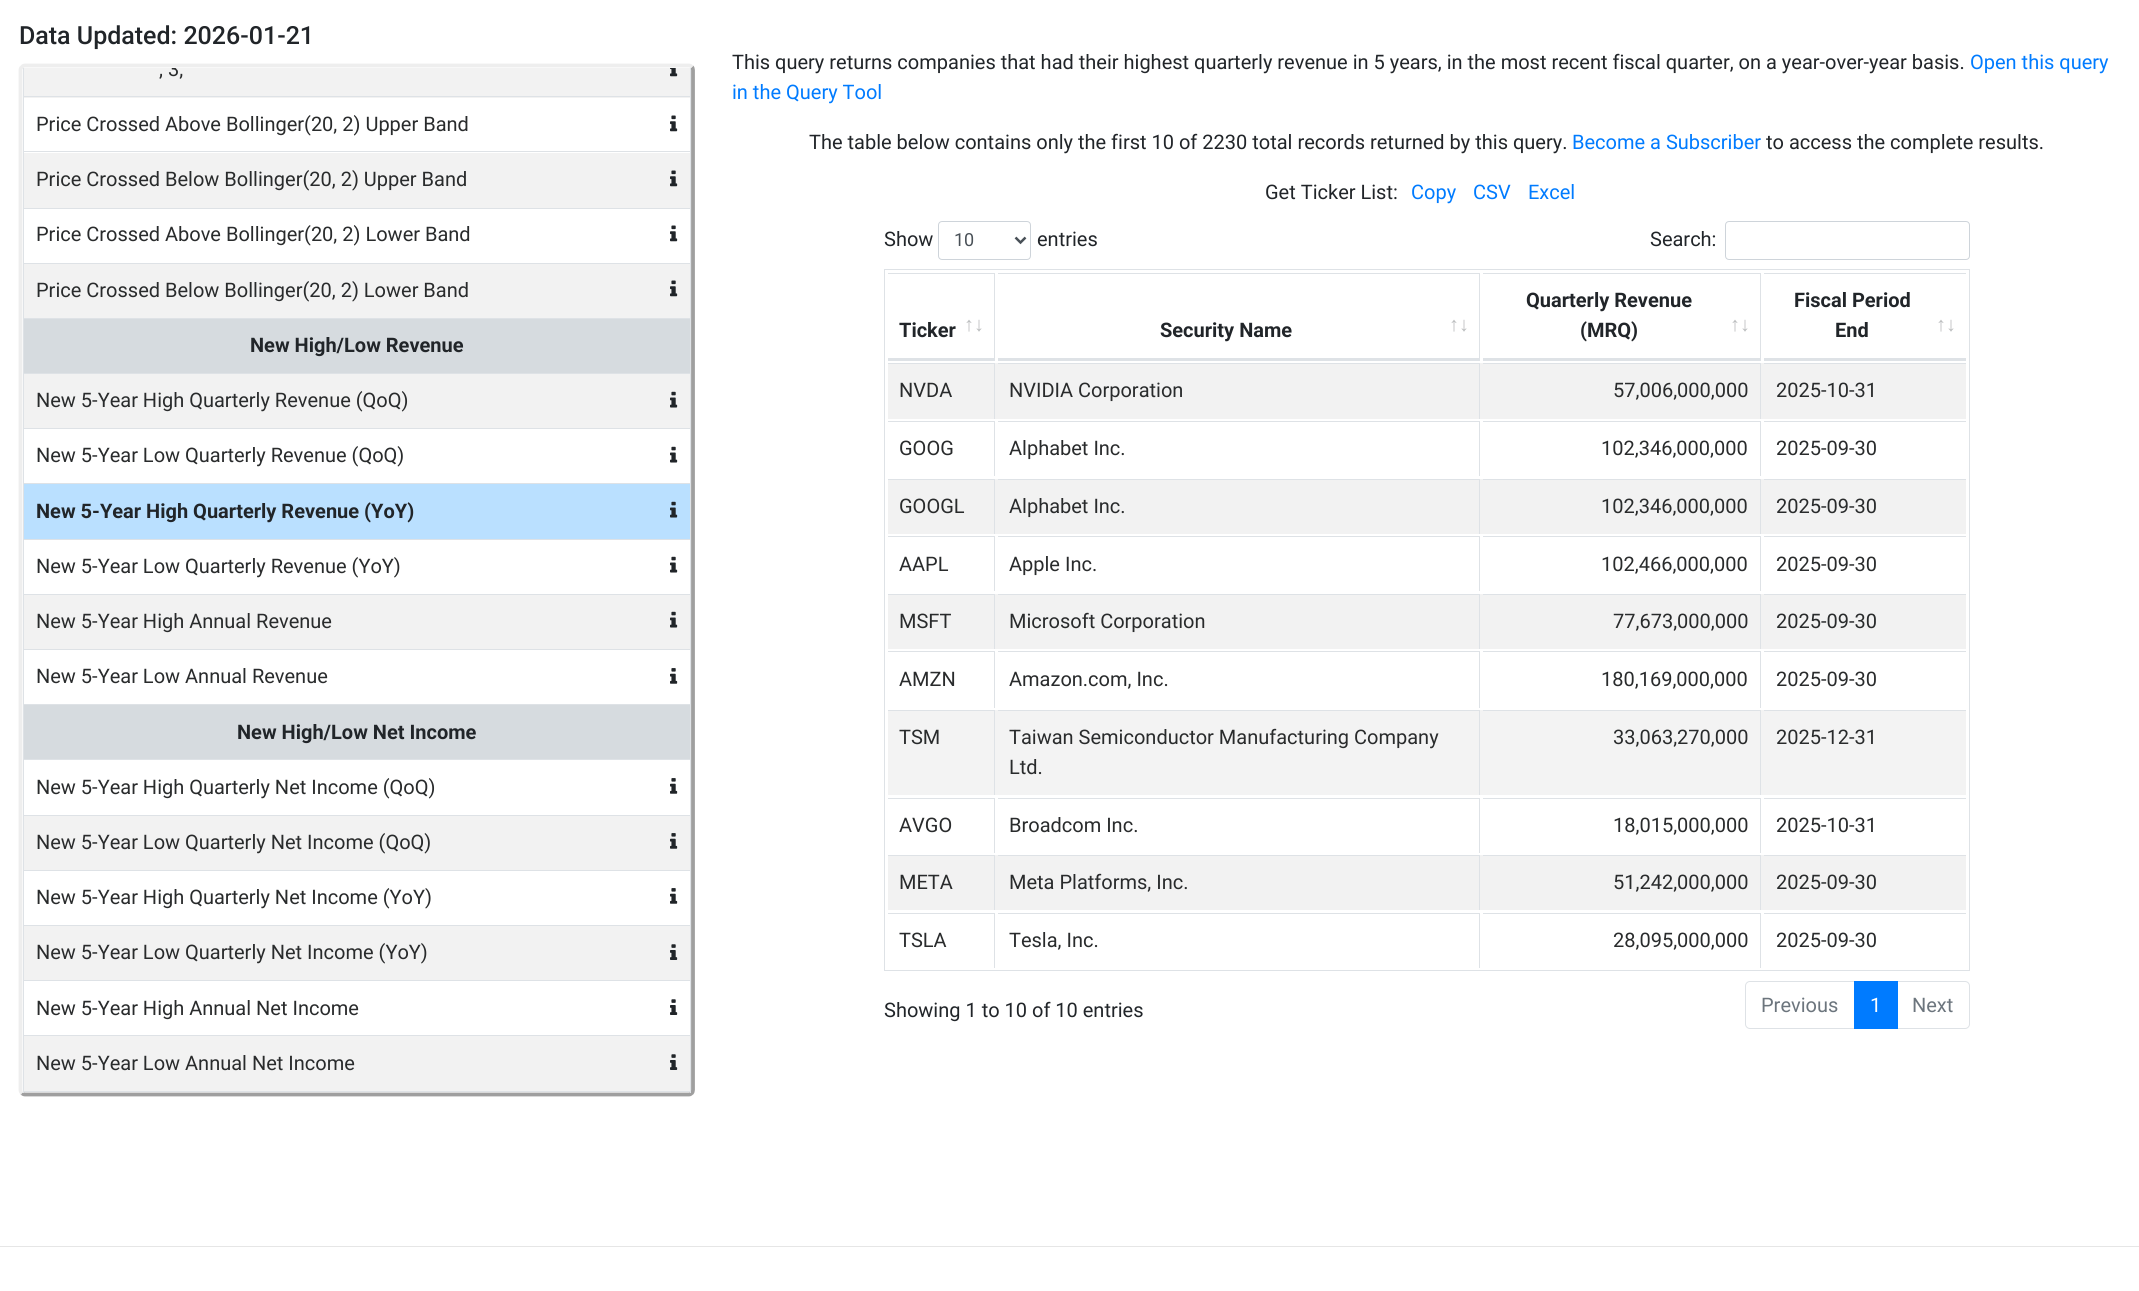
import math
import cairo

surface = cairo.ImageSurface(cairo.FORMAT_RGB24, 2139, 1291)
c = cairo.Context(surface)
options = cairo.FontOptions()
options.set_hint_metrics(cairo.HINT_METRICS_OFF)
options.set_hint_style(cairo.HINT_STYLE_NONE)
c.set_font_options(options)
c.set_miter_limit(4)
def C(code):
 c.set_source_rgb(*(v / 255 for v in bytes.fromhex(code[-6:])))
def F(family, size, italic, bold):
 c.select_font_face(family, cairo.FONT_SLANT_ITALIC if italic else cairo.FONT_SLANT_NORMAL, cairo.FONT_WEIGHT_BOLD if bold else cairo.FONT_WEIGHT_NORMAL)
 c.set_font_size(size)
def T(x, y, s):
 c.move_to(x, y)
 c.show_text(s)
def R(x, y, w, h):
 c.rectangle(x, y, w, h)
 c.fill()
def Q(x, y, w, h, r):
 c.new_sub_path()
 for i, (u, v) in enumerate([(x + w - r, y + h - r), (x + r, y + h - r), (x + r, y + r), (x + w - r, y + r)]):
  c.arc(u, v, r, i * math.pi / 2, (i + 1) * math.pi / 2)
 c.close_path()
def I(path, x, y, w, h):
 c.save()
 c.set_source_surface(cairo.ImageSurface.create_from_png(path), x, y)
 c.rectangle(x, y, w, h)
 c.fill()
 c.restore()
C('ffffff')
c.paint()
F('Roboto Medium',25,0,0)
C('212529')
T(19,44,'Data Updated: 2026-01-21')
c.new_path()
c.move_to(692,67)
c.curve_to(692.5,67.5,693,69,693,70)
c.line_to(693,1090)
c.curve_to(693,1091,692.5,1092.5,692,1093)
c.curve_to(691,1094,690,1094.5,689,1094.5)
c.line_to(25,1094.5)
c.curve_to(24,1094.5,22.5,1094,22,1093)
C('9f9f9f')
c.set_line_width(3.8)
c.stroke()
c.new_path()
c.move_to(22,1093)
c.curve_to(21,1092.5,20.5,1091,20.5,1090)
c.line_to(20.5,70)
c.curve_to(20.5,69,21,67.5,22,67)
c.curve_to(22.5,66,24,65.5,25,65.5)
c.line_to(689,65.5)
c.curve_to(690,65.5,691,66,692,67)
C('eeeeee')
c.stroke()
c.save()
Q(23,68,668,1025,2.5)
c.clip()
C('dee2e6')
R(690,68,1,1025)
R(23,68,1,1025)
c.restore()
C('f2f2f2')
R(24,68,666,30)
C('dee2e6')
R(690,68,1,2)
R(23,68,1,2)
c.save()
Q(23,68,668,1025,2.5)
c.clip()
F('Roboto',20,0,0)
C('292b2c')
T(159,76,', 3,')
c.restore()
I('1.png',670,68,8,9)
R(23,96,668,1)
F('Roboto',20,0,0)
C('292b2c')
T(36,131,'Price Crossed Above Bollinger(20, 2) Upper Band')
I('2.png',670,115,8,17)
C('f2f2f2')
R(24,153,666,55)
C('dee2e6')
R(23,151,668,1)
C('292b2c')
T(36,186,'Price Crossed Below Bollinger(20, 2) Upper Band')
I('3.png',670,170,8,17)
C('dee2e6')
R(23,208,668,1)
C('292b2c')
T(36,241,'Price Crossed Above Bollinger(20, 2) Lower Band')
I('2.png',670,225,8,17)
C('f2f2f2')
R(24,264,666,54)
C('dee2e6')
R(23,263,668,1)
C('292b2c')
T(36,297,'Price Crossed Below Bollinger(20, 2) Lower Band')
I('3.png',670,280,8,17)
C('d6dbdf')
R(24,319,666,54)
C('dee2e6')
R(23,318,668,1)
F('Roboto',20,0,1)
C('212529')
T(250,352,'New High/Low Revenue')
C('f2f2f2')
R(24,374,666,54)
C('dee2e6')
R(23,373,668,1)
F('Roboto',20,0,0)
C('292b2c')
T(36,407,'New 5-Year High Quarterly Revenue (QoQ)')
I('4.png',670,391,8,17)
C('dee2e6')
R(23,428,668,1)
C('292b2c')
T(36,462,'New 5-Year Low Quarterly Revenue (QoQ)')
I('5.png',670,446,8,17)
C('bae0ff')
R(24,484,666,55)
C('dee2e6')
R(23,483,668,1)
F('Roboto',20,0,1)
C('212529')
T(36,518,'New 5-Year High Quarterly Revenue (YoY)')
I('6.png',670,501,8,17)
C('dee2e6')
R(23,539,668,1)
F('Roboto',20,0,0)
C('292b2c')
T(36,573,'New 5-Year Low Quarterly Revenue (YoY)')
I('5.png',670,556,8,17)
C('f2f2f2')
R(24,595,666,54)
C('dee2e6')
R(23,594,668,1)
C('292b2c')
T(36,628,'New 5-Year High Annual Revenue')
I('4.png',670,611,8,17)
C('dee2e6')
R(23,649,668,1)
C('292b2c')
T(36,683,'New 5-Year Low Annual Revenue')
I('7.png',670,668,8,16)
C('d6dbdf')
R(24,705,666,54)
C('dee2e6')
R(23,704,668,1)
F('Roboto',20,0,1)
C('212529')
T(237,739,'New High/Low Net Income')
C('dee2e6')
R(23,759,668,1)
F('Roboto',20,0,0)
C('292b2c')
T(36,794,'New 5-Year High Quarterly Net Income (QoQ)')
I('7.png',670,778,8,16)
C('f2f2f2')
R(24,816,666,54)
C('dee2e6')
R(23,815,668,1)
C('292b2c')
T(36,849,'New 5-Year Low Quarterly Net Income (QoQ)')
I('8.png',670,833,8,16)
C('dee2e6')
R(23,870,668,1)
C('292b2c')
T(36,904,'New 5-Year High Quarterly Net Income (YoY)')
I('7.png',670,888,8,16)
C('f2f2f2')
R(24,926,666,54)
C('dee2e6')
R(23,925,668,1)
C('292b2c')
T(36,959,'New 5-Year Low Quarterly Net Income (YoY)')
I('9.png',670,944,8,16)
C('dee2e6')
R(23,980,668,1)
C('292b2c')
T(36,1015,'New 5-Year High Annual Net Income')
I('10.png',670,999,8,16)
C('f2f2f2')
R(24,1036,666,55)
C('dee2e6')
R(23,1035,668,1)
R(690,1092,1,1)
R(23,1091,668,1)
R(23,1092,1,1)
C('292b2c')
T(36,1070,'New 5-Year Low Annual Net Income')
I('9.png',670,1054,8,16)
C('212529')
T(732,69,'This query returns companies that had their highest quarterly revenue in 5 years, in the most recent fiscal quarter, on a year-over-year basis.')
C('007bff')
T(1970,69,'Open this query')
T(732,99,'in the Query Tool')
C('212529')
T(809,149,'The table below contains only the first 10 of 2230 total records returned by this query.')
C('007bff')
T(1572,149,'Become a Subscriber')
C('212529')
T(1766,149,'to access the complete results.')
T(1265,199,'Get Ticker List:')
C('007bff')
T(1411,199,'Copy')
T(1473,199,'CSV')
T(1528,199,'Excel')
C('212529')
T(884,246,'Show')
Q(938.5,221.5,92,38,3.5)
C('ced4da')
c.set_line_width(1)
c.stroke()
c.new_path()
c.move_to(1015.5,237.5)
c.line_to(1020.5,242.5)
c.line_to(1025.5,237.5)
C('495057')
c.set_line_width(2.5)
c.stroke()
F('Roboto',18,0,0)
T(954,246,'10')
F('Roboto',20,0,0)
C('212529')
T(1037,246,'entries')
T(1650,246,'Search:')
Q(1725.5,221.5,244,38,3.5)
C('ced4da')
c.set_line_width(1)
c.stroke()
c.rectangle(884.5,269.5,1085,701)
C('dee2e6')
c.stroke()
R(888,273,107,1)
R(994,273,1,87)
R(888,358,107,3)
F('Roboto',20,0,1)
C('212529')
T(899,337,'Ticker')
F('Liberation Sans',20,0,1)
C('bcbebf')
T(964,331,'↑↓')
C('dee2e6')
R(998,273,482,1)
R(1479,273,1,87)
R(998,358,482,3)
F('Roboto',20,0,1)
C('212529')
T(1160,337,'Security Name')
F('Liberation Sans',20,0,1)
C('bcbebf')
T(1449,331,'↑↓')
C('dee2e6')
R(1483,273,278,1)
R(1760,273,1,87)
R(1483,358,278,3)
F('Roboto',20,0,1)
C('212529')
T(1526,307,'Quarterly Revenue')
T(1580,337,'(MRQ)')
F('Liberation Sans',20,0,1)
C('bcbebf')
T(1730,331,'↑↓')
C('dee2e6')
R(1764,273,202,1)
R(1764,358,202,3)
F('Roboto',20,0,1)
C('212529')
T(1794,307,'Fiscal Period')
T(1835,337,'End')
F('Liberation Sans',20,0,1)
C('bcbebf')
T(1936,331,'↑↓')
C('f2f2f2')
R(888,363,1078,56)
C('dee2e6')
R(888,363,107,1)
R(994,363,1,56)
F('Roboto',20,0,0)
C('292b2c')
T(899,397,'NVDA')
C('dee2e6')
R(998,363,482,1)
R(1479,363,1,56)
C('292b2c')
T(1009,397,'NVIDIA Corporation')
C('dee2e6')
R(1483,363,278,1)
R(1760,363,1,56)
C('292b2c')
T(1613,397,'57,006,000,000')
C('dee2e6')
R(1764,363,202,1)
C('292b2c')
T(1776,397,'2025-10-31')
C('dee2e6')
R(888,421,107,1)
R(994,421,1,55)
C('292b2c')
T(899,455,'GOOG')
C('dee2e6')
R(998,421,482,1)
R(1479,421,1,55)
C('292b2c')
T(1009,455,'Alphabet Inc.')
C('dee2e6')
R(1483,421,278,1)
R(1760,421,1,55)
C('292b2c')
T(1601,455,'102,346,000,000')
C('dee2e6')
R(1764,421,202,1)
C('292b2c')
T(1776,455,'2025-09-30')
C('f2f2f2')
R(888,479,1078,55)
C('dee2e6')
R(888,479,107,1)
R(994,479,1,55)
C('292b2c')
T(899,513,'GOOGL')
C('dee2e6')
R(998,479,482,1)
R(1479,479,1,55)
C('292b2c')
T(1009,513,'Alphabet Inc.')
C('dee2e6')
R(1483,479,278,1)
R(1760,479,1,55)
C('292b2c')
T(1601,513,'102,346,000,000')
C('dee2e6')
R(1764,479,202,1)
C('292b2c')
T(1776,513,'2025-09-30')
C('dee2e6')
R(888,536,107,1)
R(994,536,1,55)
C('292b2c')
T(899,571,'AAPL')
C('dee2e6')
R(998,536,482,1)
R(1479,536,1,55)
C('292b2c')
T(1009,571,'Apple Inc.')
C('dee2e6')
R(1483,536,278,1)
R(1760,536,1,55)
C('292b2c')
T(1601,571,'102,466,000,000')
C('dee2e6')
R(1764,536,202,1)
C('292b2c')
T(1776,571,'2025-09-30')
C('f2f2f2')
R(888,594,1078,55)
C('dee2e6')
R(888,594,107,1)
R(994,594,1,55)
C('292b2c')
T(899,628,'MSFT')
C('dee2e6')
R(998,594,482,1)
R(1479,594,1,55)
C('292b2c')
T(1009,628,'Microsoft Corporation')
C('dee2e6')
R(1483,594,278,1)
R(1760,594,1,55)
C('292b2c')
T(1613,628,'77,673,000,000')
C('dee2e6')
R(1764,594,202,1)
C('292b2c')
T(1776,628,'2025-09-30')
C('dee2e6')
R(888,651,107,1)
R(994,651,1,57)
C('292b2c')
T(899,686,'AMZN')
C('dee2e6')
R(998,651,482,1)
R(1479,651,1,57)
C('292b2c')
T(1009,686,'Amazon.com, Inc.')
C('dee2e6')
R(1483,651,278,1)
R(1760,651,1,57)
C('292b2c')
T(1601,686,'180,169,000,000')
C('dee2e6')
R(1764,651,202,1)
C('292b2c')
T(1776,686,'2025-09-30')
C('f3f3f3')
R(888,710,1078,85)
C('dee2e6')
R(888,710,107,1)
R(994,710,1,85)
C('292b2c')
T(899,744,'TSM')
C('dee2e6')
R(998,710,482,1)
R(1479,710,1,85)
C('292b2c')
T(1009,744,'Taiwan Semiconductor Manufacturing Company')
T(1009,774,'Ltd.')
C('dee2e6')
R(1483,710,278,1)
R(1760,710,1,85)
C('292b2c')
T(1613,744,'33,063,270,000')
C('dee2e6')
R(1764,710,202,1)
C('292b2c')
T(1776,744,'2025-12-31')
C('dee2e6')
R(888,798,107,1)
R(994,798,1,55)
C('292b2c')
T(899,832,'AVGO')
C('dee2e6')
R(998,798,482,1)
R(1479,798,1,55)
C('292b2c')
T(1009,832,'Broadcom Inc.')
C('dee2e6')
R(1483,798,278,1)
R(1760,798,1,55)
C('292b2c')
T(1613,832,'18,015,000,000')
C('dee2e6')
R(1764,798,202,1)
C('292b2c')
T(1776,832,'2025-10-31')
C('f2f2f2')
R(888,855,1078,55)
C('dee2e6')
R(888,855,107,1)
R(994,855,1,55)
C('292b2c')
T(899,889,'META')
C('dee2e6')
R(998,855,482,1)
R(1479,855,1,55)
C('292b2c')
T(1009,889,'Meta Platforms, Inc.')
C('dee2e6')
R(1483,855,278,1)
R(1760,855,1,55)
C('292b2c')
T(1613,889,'51,242,000,000')
C('dee2e6')
R(1764,855,202,1)
C('292b2c')
T(1776,889,'2025-09-30')
C('dee2e6')
R(888,913,107,1)
R(994,913,1,55)
C('292b2c')
T(899,947,'TSLA')
C('dee2e6')
R(998,913,482,1)
R(1479,913,1,55)
C('292b2c')
T(1009,947,'Tesla, Inc.')
C('dee2e6')
R(1483,913,278,1)
R(1760,913,1,55)
C('292b2c')
T(1613,947,'28,095,000,000')
C('dee2e6')
R(1764,913,202,1)
C('292b2c')
T(1776,947,'2025-09-30')
C('212529')
T(884,1017,'Showing 1 to 10 of 10 entries')
c.new_path()
c.move_to(1750,981.5)
c.line_to(1854.5,981.5)
c.line_to(1854.5,1028.5)
c.line_to(1750,1028.5)
c.curve_to(1747.5,1028.5,1745.5,1026.5,1745.5,1024)
c.line_to(1745.5,986)
c.curve_to(1745.5,983.5,1747.5,981.5,1750,981.5)
c.close_path()
C('dee2e6')
c.stroke()
C('6c757d')
T(1761,1012,'Previous')
c.new_path()
c.move_to(1896.5,981.5)
c.line_to(1965,981.5)
c.curve_to(1967.5,981.5,1969.5,983.5,1969.5,986)
c.line_to(1969.5,1024)
c.curve_to(1969.5,1026.5,1967.5,1028.5,1965,1028.5)
c.line_to(1896.5,1028.5)
c.close_path()
C('dee2e6')
c.stroke()
C('007bff')
R(1854,981,44,48)
C('ffffff')
T(1870,1012,'1')
C('6c757d')
T(1912,1012,'Next')
C('e6e6e6')
R(0,1246,2139,1)
surface.write_to_png('o.png')
